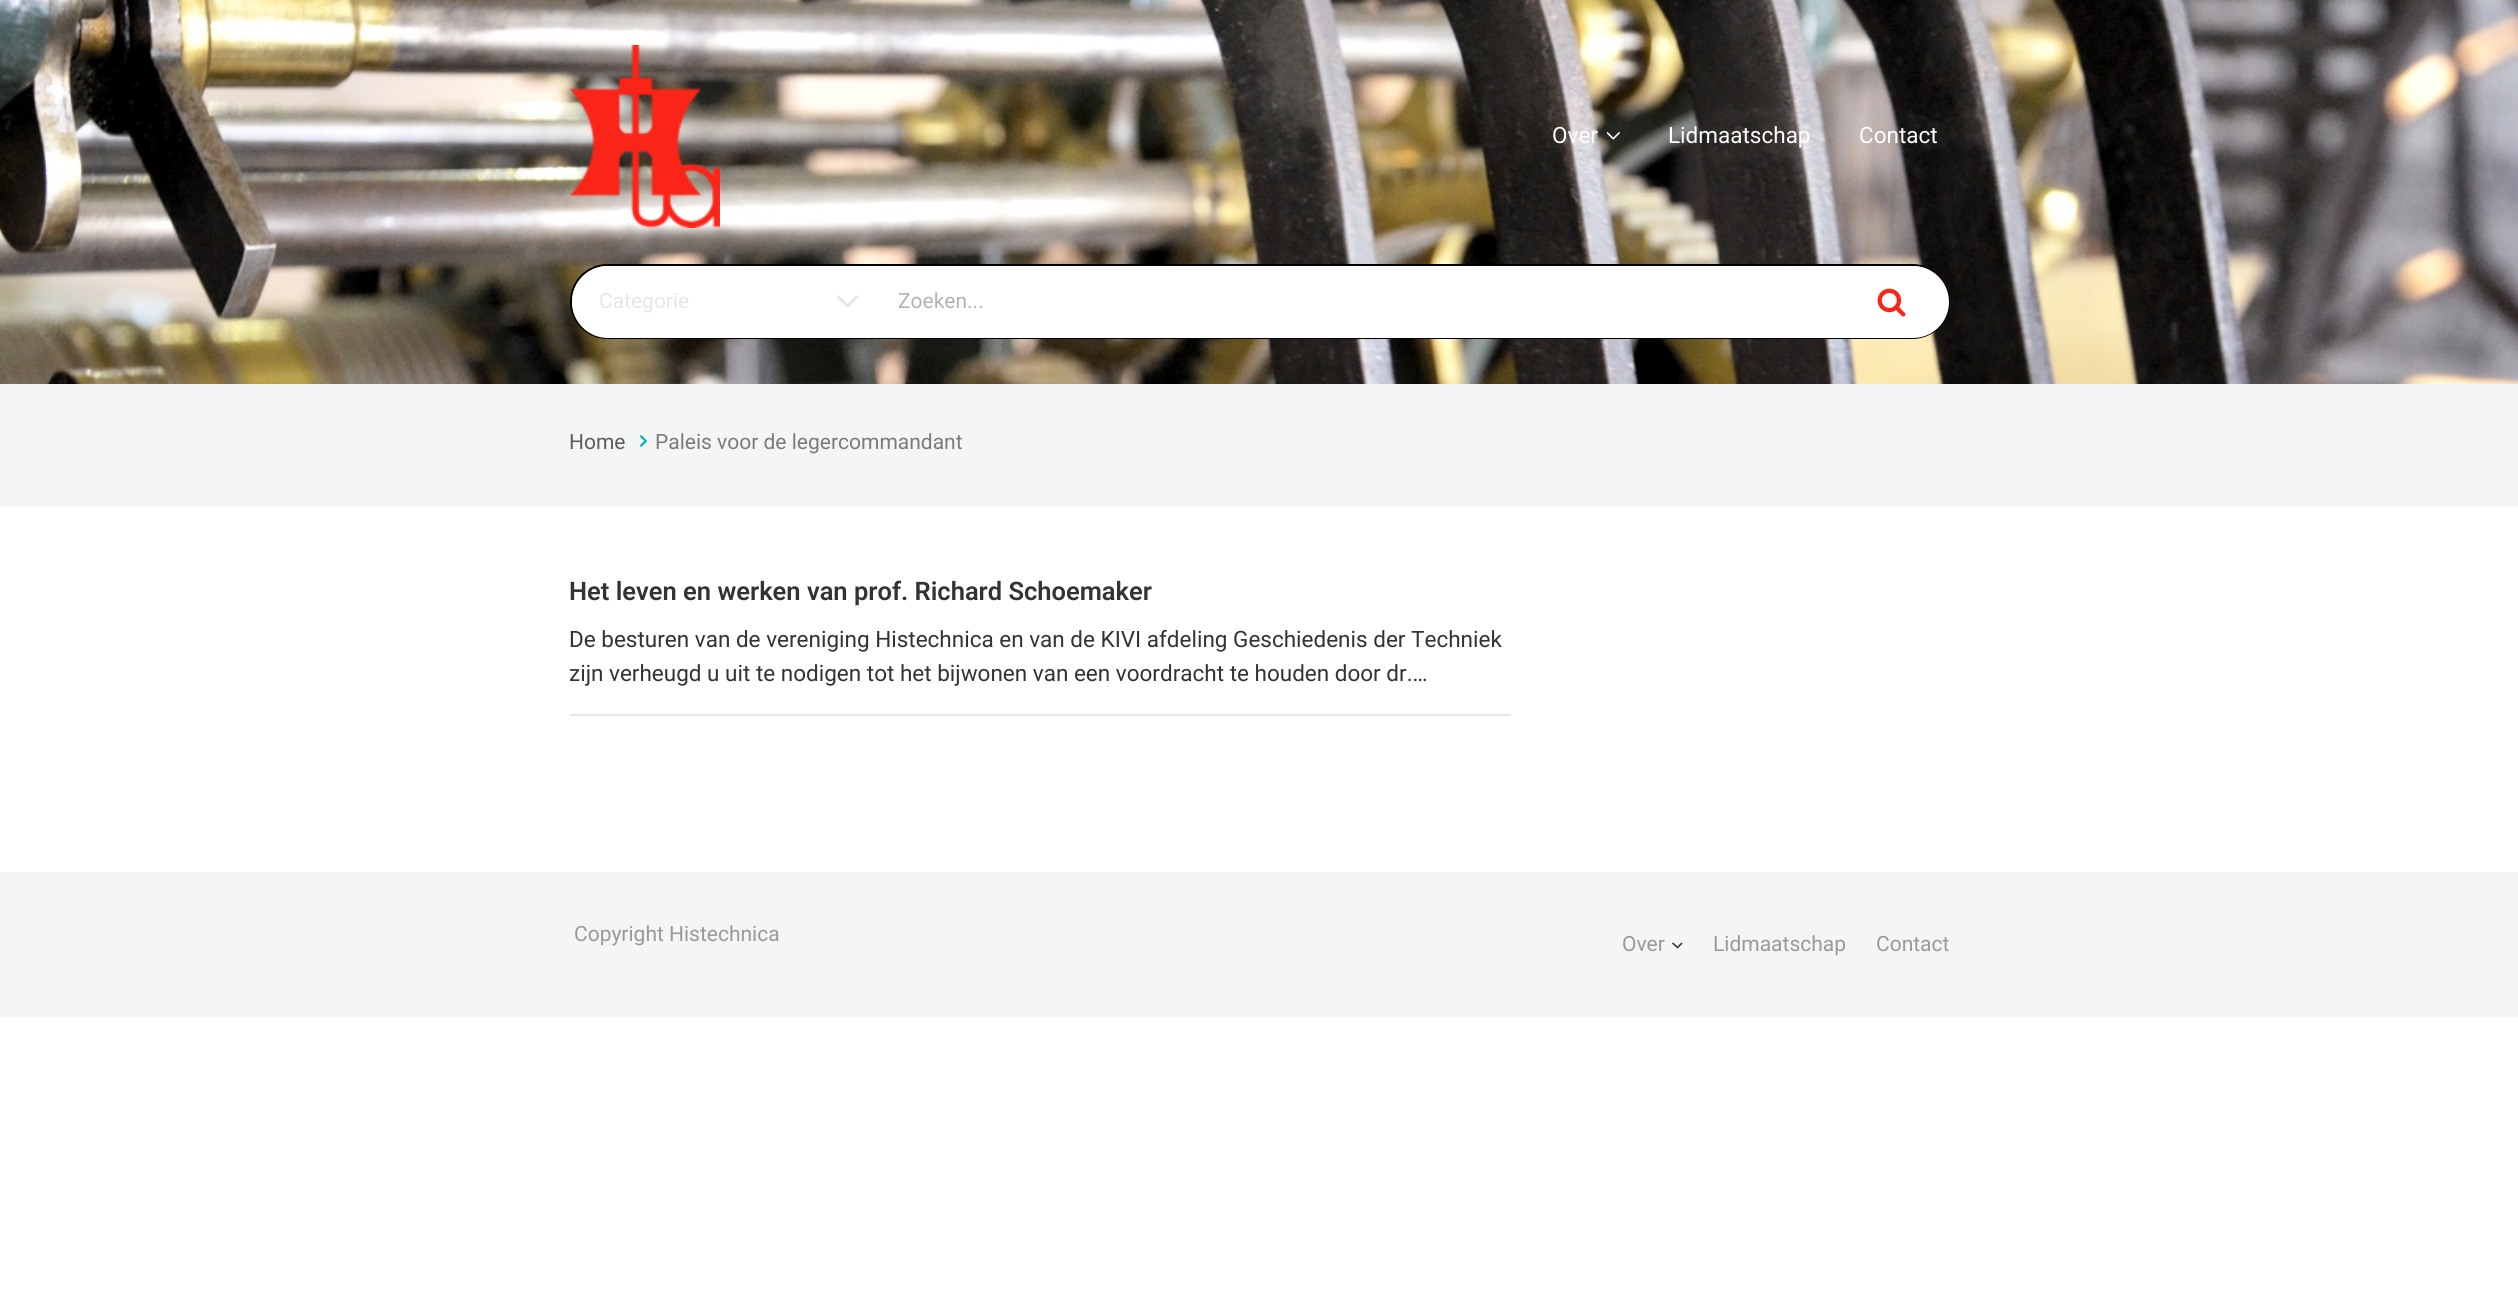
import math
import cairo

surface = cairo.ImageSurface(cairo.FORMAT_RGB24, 2518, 1294)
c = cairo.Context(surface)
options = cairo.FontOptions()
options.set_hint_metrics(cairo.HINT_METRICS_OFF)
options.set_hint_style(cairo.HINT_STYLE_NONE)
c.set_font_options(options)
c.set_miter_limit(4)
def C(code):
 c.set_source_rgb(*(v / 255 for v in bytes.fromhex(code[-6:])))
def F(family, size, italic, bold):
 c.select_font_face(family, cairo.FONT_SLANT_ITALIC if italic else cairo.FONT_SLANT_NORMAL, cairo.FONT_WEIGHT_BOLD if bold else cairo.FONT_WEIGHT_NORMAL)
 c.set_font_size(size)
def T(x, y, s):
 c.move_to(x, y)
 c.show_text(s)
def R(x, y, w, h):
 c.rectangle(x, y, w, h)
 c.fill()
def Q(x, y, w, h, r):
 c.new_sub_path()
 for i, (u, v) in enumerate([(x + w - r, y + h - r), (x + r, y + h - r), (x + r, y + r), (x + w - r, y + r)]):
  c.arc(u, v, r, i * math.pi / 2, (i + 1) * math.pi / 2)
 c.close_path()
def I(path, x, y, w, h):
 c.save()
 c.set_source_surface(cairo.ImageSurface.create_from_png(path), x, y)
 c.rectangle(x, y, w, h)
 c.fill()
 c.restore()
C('ffffff')
c.paint()
I('1.png',0,0,2518,384)
I('2.png',570,45,150,183)
F('Roboto',22.5,0,0)
C('ffffff')
T(1552,143,'Over')
I('3.png',1607,132,13,8)
T(1668,143,'Lidmaatschap')
T(1859,143,'Contact')
Q(571,265,1378,73,36.5)
c.fill_preserve()
C('000000')
c.stroke()
C('ffffff')
Q(572,266,1377,72,36)
c.fill()
F('Roboto',21,0,0)
C('e6e6e6')
T(599,308,'Categorie')
I('4.png',837,295,21,13)
c.save()
c.rectangle(899,290,933,24)
c.clip()
C('b3b3b3')
T(898,308,'Zoeken...')
c.restore()
I('5.png',1877,288,29,29)
C('f4f5f5')
R(0,384,2518,123)
C('5c5c5c')
T(569,449,'Home')
I('6.png',639,435,9,12)
C('7a7b7b')
T(655,449,'Paleis voor de legercommandant')
C('e6e6e6')
R(570,714,941,2)
F('Roboto SemiBold',25.5,0,0)
C('333333')
T(569,600,'Het leven en werken van prof. Richard Schoemaker')
F('Roboto',22.5,0,0)
T(569,647,'De besturen van de vereniging Histechnica en van de KIVI afdeling Geschiedenis der Techniek')
T(569,681,'zijn verheugd u uit te nodigen tot het bijwonen van een voordracht te houden door dr.…')
C('f4f5f5')
R(0,872,2518,145)
F('Roboto',21,0,0)
C('999999')
T(574,941,'Copyright Histechnica')
T(1622,951,'Over')
c.new_path()
c.move_to(1672.5,943)
c.line_to(1677.5,947.5)
c.line_to(1682,943)
C('333333')
c.set_line_width(1.6)
c.stroke()
C('999999')
T(1713,951,'Lidmaatschap')
T(1876,951,'Contact')
surface.write_to_png('o.png')
